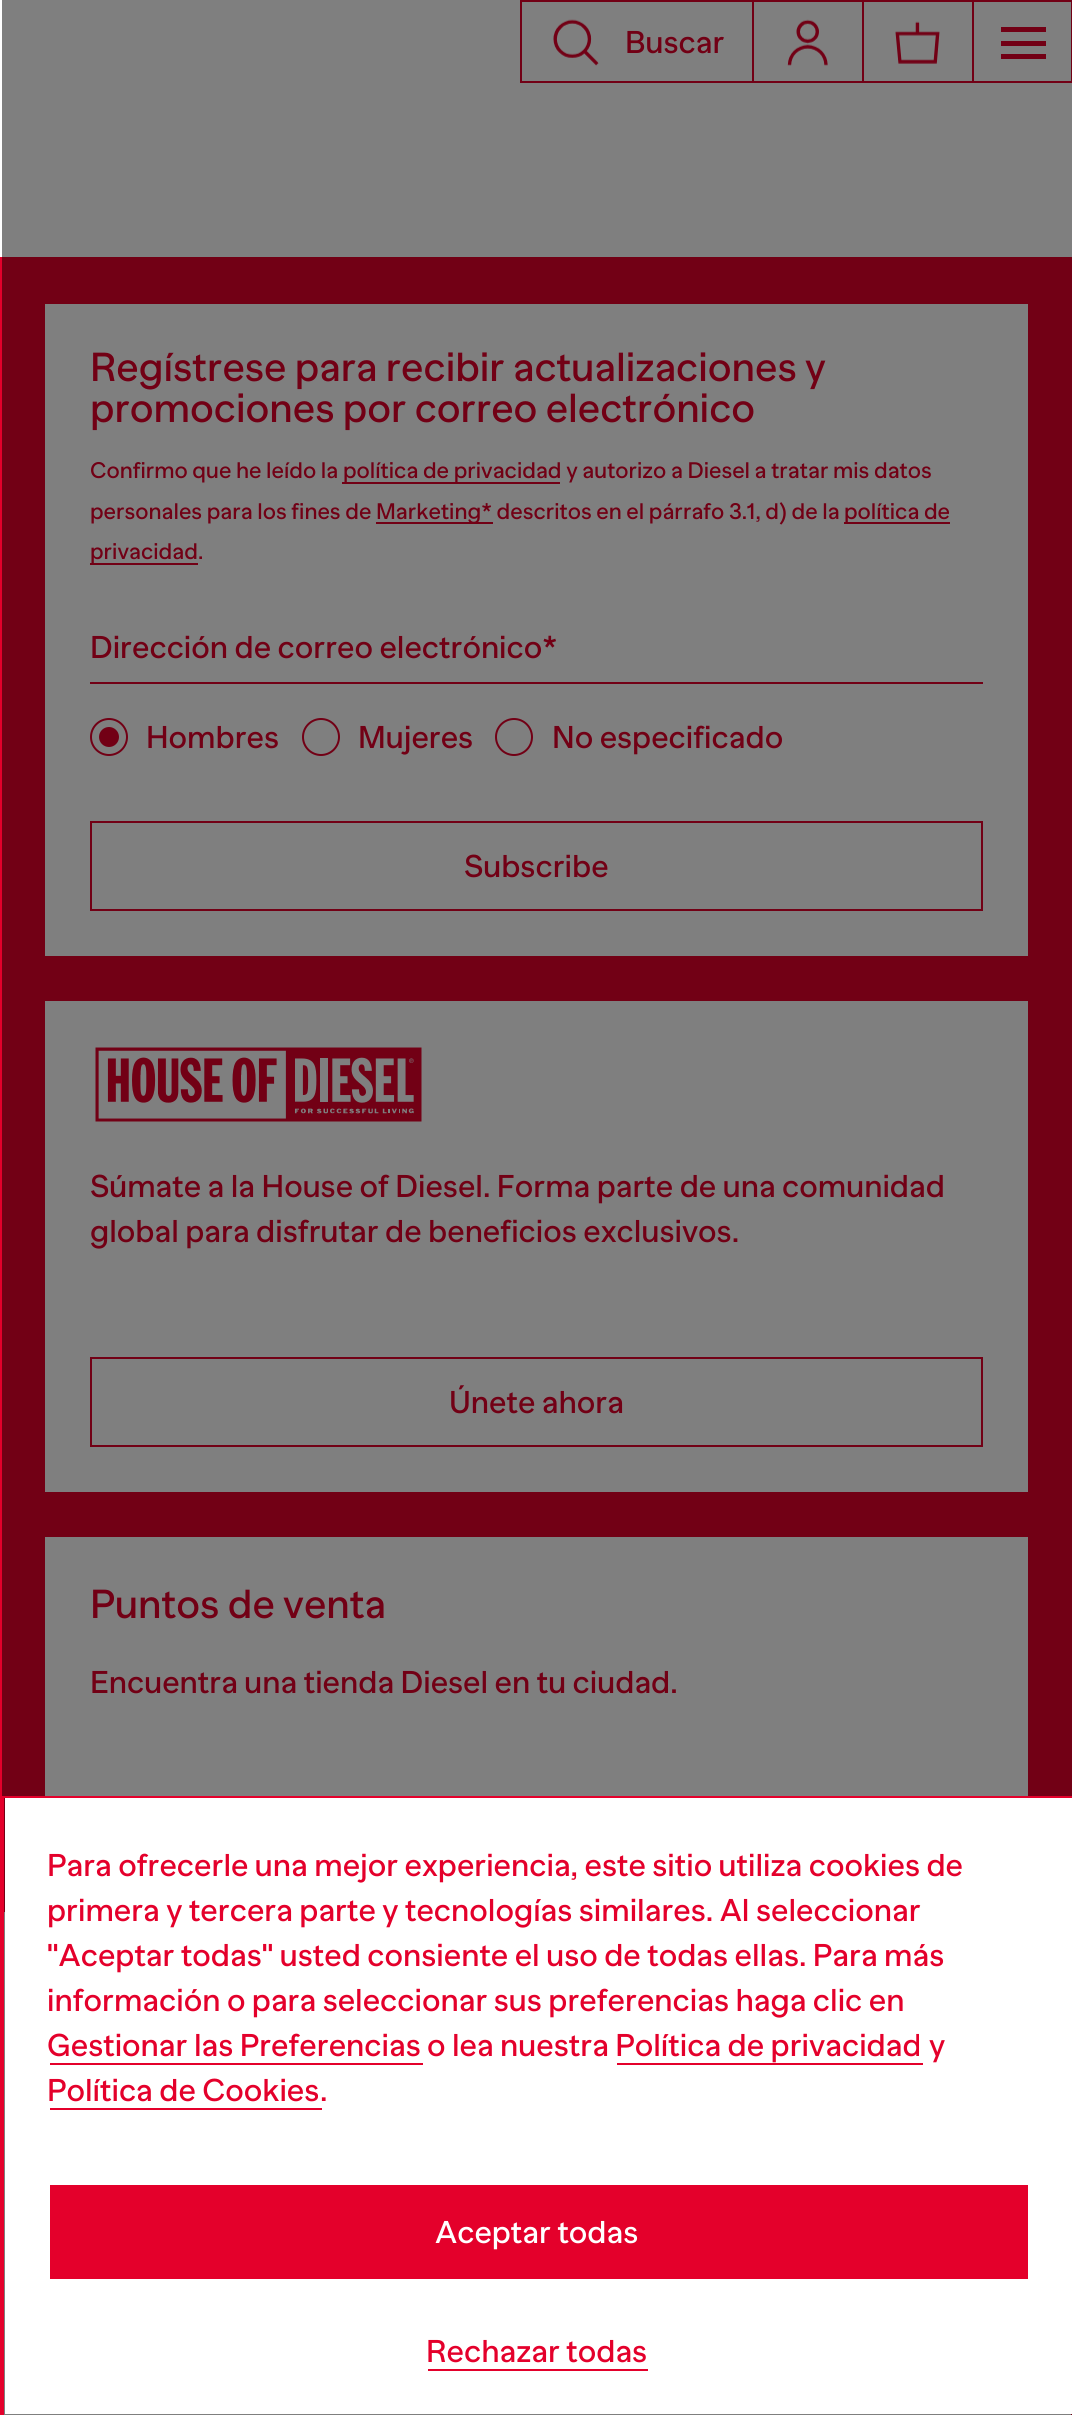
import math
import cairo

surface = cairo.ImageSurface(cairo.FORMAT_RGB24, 1072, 2415)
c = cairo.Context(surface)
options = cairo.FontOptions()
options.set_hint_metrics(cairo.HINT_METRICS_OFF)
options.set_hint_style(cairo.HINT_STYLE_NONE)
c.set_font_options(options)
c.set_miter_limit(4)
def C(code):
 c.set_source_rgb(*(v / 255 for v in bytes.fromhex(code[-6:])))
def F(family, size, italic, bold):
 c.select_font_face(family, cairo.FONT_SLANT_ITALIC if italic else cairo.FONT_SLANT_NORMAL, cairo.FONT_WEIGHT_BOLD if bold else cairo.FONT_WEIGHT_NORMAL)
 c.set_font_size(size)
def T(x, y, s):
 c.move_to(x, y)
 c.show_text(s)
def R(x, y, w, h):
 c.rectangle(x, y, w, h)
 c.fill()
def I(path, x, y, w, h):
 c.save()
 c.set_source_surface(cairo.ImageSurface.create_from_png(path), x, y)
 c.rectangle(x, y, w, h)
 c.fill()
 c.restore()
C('ffffff')
c.paint()
C('e4002b')
R(520,0,2,83)
R(522,0,230,2)
R(522,81,230,2)
I('1.png',553,19,46,47)
F('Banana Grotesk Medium',31.5,0,0)
T(625,53,'Buscar')
R(752,0,2,83)
R(754,0,108,2)
R(754,81,108,2)
I('2.png',787,19,41,47)
R(862,0,2,83)
R(864,0,108,2)
R(864,81,108,2)
I('3.png',895,21,45,43)
c.rectangle(973,1,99,81)
c.stroke()
R(1001,27,45,5)
R(1001,41,45,5)
R(1001,54,45,5)
R(0,257,1072,1653)
C('ffffff')
R(45,304,983,652)
F('Banana Grotesk Medium',40.5,0,0)
C('e4002b')
T(90,381,'Regístrese para recibir actualizaciones y')
T(90,422,'promociones por correo electrónico')
F('Banana Grotesk Medium',22.5,0,0)
T(90,478,'Confirmo que he leído la')
R(342,482,218,2)
T(343,478,'política de privacidad y autorizo a Diesel a tratar mis datos')
T(90,519,'personales para los fines de')
R(376,522,117,2)
T(376,519,'Marketing* descritos en el párrafo 3.1, d) de la')
R(844,522,106,2)
T(844,519,'política de')
R(90,563,108,2)
T(90,559,'privacidad.')
F('Banana Grotesk Medium',31.5,0,0)
T(90,658,'Dirección de correo electrónico*')
R(90,682,893,2)
c.new_path()
c.arc(109,737,18,0,2 * math.pi)
c.stroke()
c.arc(109,737,10,0,2 * math.pi)
c.fill()
T(146,748,'Hombres')
c.new_path()
c.arc(321,737,18,0,2 * math.pi)
c.stroke()
T(358,748,'Mujeres')
c.new_path()
c.arc(514,737,18,0,2 * math.pi)
c.stroke()
T(552,748,'No especificado')
c.rectangle(91,822,891,88)
c.stroke()
T(464,877,'Subscribe')
C('ffffff')
R(45,1001,983,491)
I('4.png',95,1047,327,75)
C('e4002b')
T(90,1197,'Súmate a la House of Diesel. Forma parte de una comunidad')
T(90,1242,'global para disfrutar de beneficios exclusivos.')
c.rectangle(91,1358,891,88)
c.stroke()
T(449,1413,'Únete ahora')
C('ffffff')
R(45,1537,983,259)
F('Banana Grotesk Medium',40.5,0,0)
C('e4002b')
T(90,1618,'Puntos de venta')
F('Banana Grotesk Medium',31.5,0,0)
T(90,1693,'Encuentra una tienda Diesel en tu ciudad.')
c.rectangle(1,1911,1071,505)
c.stroke()
c.set_source_rgba(0,0,0,0.5)
R(2,0,1070,2415)
c.rectangle(3,1797,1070,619)
C('e4002b')
c.stroke()
C('ffffff')
R(5,1798,1067,616)
C('e4002b')
T(47,1876,'Para ofrecerle una mejor experiencia, este sitio utiliza cookies de')
T(47,1921,'primera y tercera parte y tecnologías similares. Al seleccionar')
T(47,1966,'"Aceptar todas" usted consiente el uso de todas ellas. Para más')
T(47,2011,'información o para seleccionar sus preferencias haga clic en')
T(47,2056,'Gestionar las Preferencias')
R(50,2063,373,2)
T(427,2056,'o lea nuestra Política de privacidad')
T(929,2056,'y')
R(617,2063,306,2)
T(47,2101,'Política de Cookies')
R(50,2108,272,2)
T(320,2101,'.')
R(50,2185,978,94)
C('ffffff')
T(435,2243,'Aceptar todas')
C('e4002b')
T(426,2362,'Rechazar todas')
R(428,2369,220,2)
surface.write_to_png('o.png')
